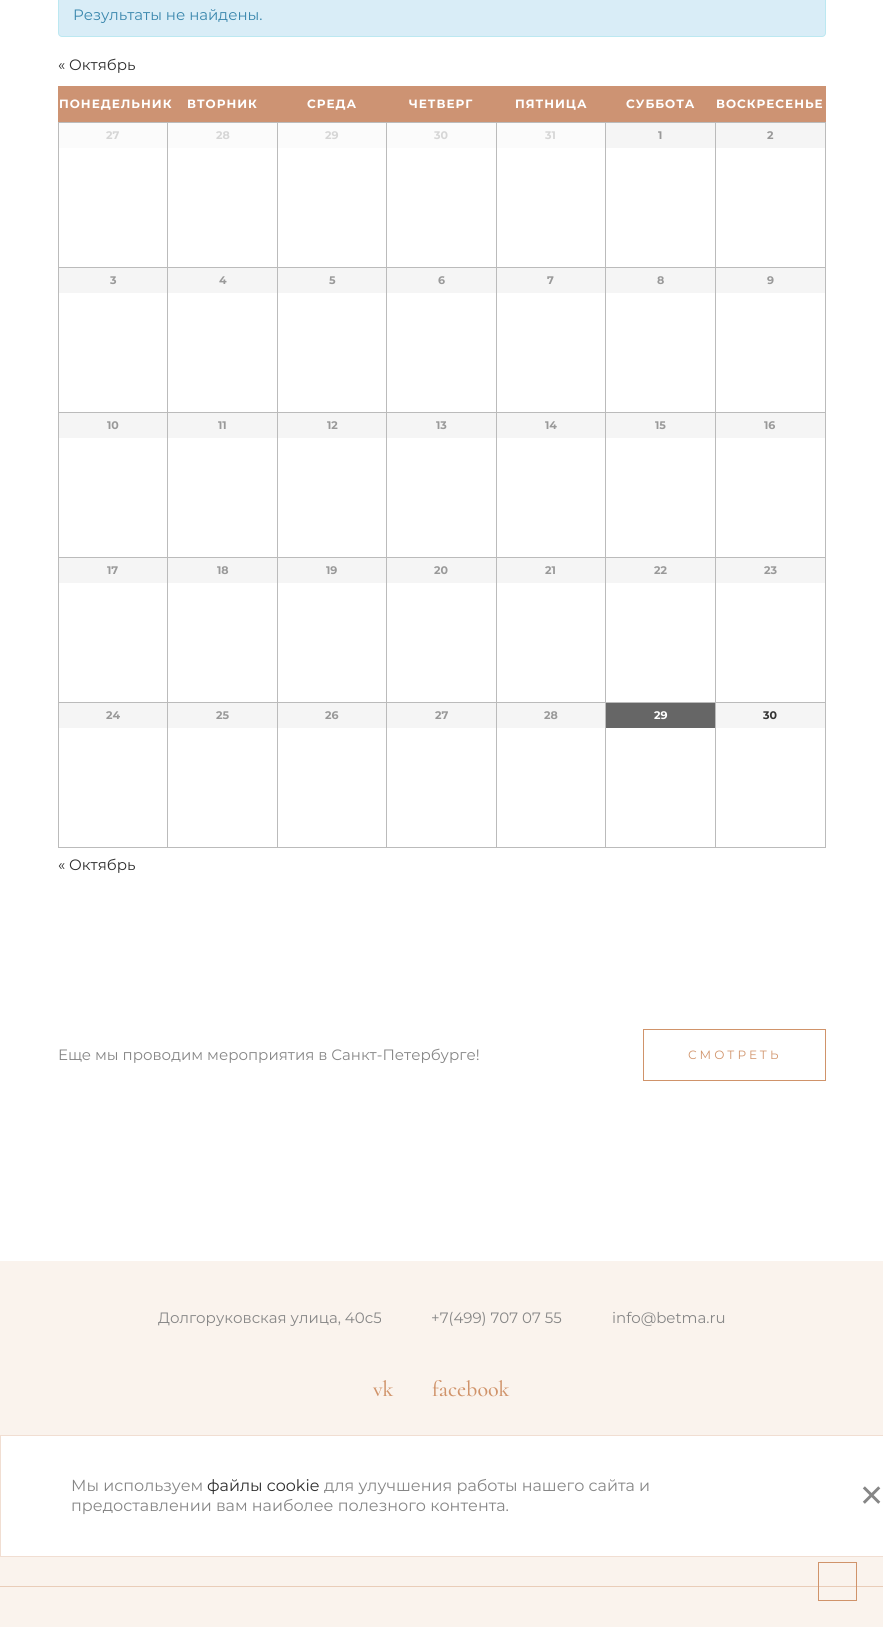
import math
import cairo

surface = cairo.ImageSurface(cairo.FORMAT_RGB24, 883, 1627)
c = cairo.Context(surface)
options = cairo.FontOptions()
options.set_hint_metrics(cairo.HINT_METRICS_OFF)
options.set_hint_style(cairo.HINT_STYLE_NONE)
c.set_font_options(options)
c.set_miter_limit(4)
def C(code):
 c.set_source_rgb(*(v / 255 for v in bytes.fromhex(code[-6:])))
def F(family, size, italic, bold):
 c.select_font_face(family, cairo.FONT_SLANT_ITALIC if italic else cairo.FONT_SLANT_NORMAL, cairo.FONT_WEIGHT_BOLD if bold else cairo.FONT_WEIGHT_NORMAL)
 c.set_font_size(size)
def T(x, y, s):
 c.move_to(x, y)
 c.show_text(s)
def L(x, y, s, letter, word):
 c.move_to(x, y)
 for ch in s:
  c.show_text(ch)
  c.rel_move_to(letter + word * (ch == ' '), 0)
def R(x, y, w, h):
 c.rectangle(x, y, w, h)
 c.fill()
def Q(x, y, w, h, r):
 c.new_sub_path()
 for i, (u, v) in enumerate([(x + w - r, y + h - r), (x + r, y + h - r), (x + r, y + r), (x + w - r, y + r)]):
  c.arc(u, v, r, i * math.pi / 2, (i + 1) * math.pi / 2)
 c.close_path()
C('faf3ed')
c.paint()
C('ffffff')
R(0,0,883,1261)
C('d9edf7')
Q(58.5,-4.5,767,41,3.5)
c.fill_preserve()
C('bce8f1')
c.set_line_width(1)
c.stroke()
F('Montserrat',15,0,0)
C('3a87ad')
T(73,20,'Результаты не найдены.')
C('2d2d2d')
T(58,70,'« Октябрь')
C('cd9373')
R(58,86,768,1)
R(825,86,1,36)
R(58,121,768,1)
R(58,86,1,36)
R(59,87,766,34)
F('Montserrat',12,0,1)
C('ffffff')
L(59,108,'ПОНЕДЕЛЬНИК',1,0)
L(187,108,'ВТОРНИК',1,0)
L(307,108,'СРЕДА',1,0)
L(409,108,'ЧЕТВЕРГ',1,0)
L(515,108,'ПЯТНИЦА',1,0)
L(626,108,'СУББОТА',1,0)
L(716,108,'ВОСКРЕСЕНЬЕ',1,0)
C('bbbbbb')
R(715,122,111,1)
R(715,267,111,1)
R(715,412,111,1)
R(715,557,111,1)
R(715,702,111,1)
R(825,702,1,146)
R(715,847,111,1)
R(715,702,1,146)
R(605,702,111,1)
R(715,557,1,146)
R(605,557,111,1)
R(715,412,1,146)
R(605,412,111,1)
R(715,267,1,146)
R(605,267,111,1)
R(715,122,1,146)
R(605,122,111,1)
R(605,847,111,1)
R(605,702,1,146)
R(496,702,110,1)
R(605,557,1,146)
R(496,557,110,1)
R(605,412,1,146)
R(496,412,110,1)
R(605,267,1,146)
R(496,267,110,1)
R(605,122,1,146)
R(496,122,110,1)
R(496,847,110,1)
R(496,702,1,146)
R(386,702,111,1)
R(496,557,1,146)
R(386,557,111,1)
R(496,412,1,146)
R(386,412,111,1)
R(496,267,1,146)
R(386,267,111,1)
R(496,122,1,146)
R(386,122,111,1)
R(386,847,111,1)
R(386,702,1,146)
R(277,702,110,1)
R(386,557,1,146)
R(277,557,110,1)
R(386,412,1,146)
R(277,412,110,1)
R(386,267,1,146)
R(277,267,110,1)
R(386,122,1,146)
R(277,122,110,1)
R(277,847,110,1)
R(277,702,1,146)
R(167,702,111,1)
R(277,557,1,146)
R(167,557,111,1)
R(277,412,1,146)
R(167,412,111,1)
R(277,267,1,146)
R(167,267,111,1)
R(277,122,1,146)
R(167,122,111,1)
R(167,847,111,1)
R(167,702,1,146)
R(58,702,110,1)
R(167,557,1,146)
R(58,557,110,1)
R(167,412,1,146)
R(58,412,110,1)
R(167,267,1,146)
R(58,267,110,1)
R(167,122,1,146)
R(58,122,110,1)
R(58,847,110,1)
R(58,702,1,146)
R(58,557,1,146)
R(58,412,1,146)
R(58,267,1,146)
R(58,122,1,146)
C('fbfbfb')
R(59,123,108,25)
F('Montserrat',11,0,1)
C('d6d6d6')
T(106,139,'27')
C('fbfbfb')
R(168,123,109,25)
C('d6d6d6')
T(216,139,'28')
C('fbfbfb')
R(278,123,108,25)
C('d6d6d6')
T(325,139,'29')
C('fbfbfb')
R(387,123,109,25)
C('d6d6d6')
T(434,139,'30')
C('fbfbfb')
R(497,123,108,25)
C('d6d6d6')
T(545,139,'31')
C('f5f5f5')
R(606,123,109,25)
C('999999')
T(658,139,'1')
C('bbbbbb')
R(825,557,1,146)
R(825,412,1,146)
R(825,267,1,146)
R(825,122,1,146)
C('f5f5f5')
R(716,123,109,25)
C('999999')
T(767,139,'2')
C('f5f5f5')
R(59,268,108,25)
C('999999')
T(110,284,'3')
C('f5f5f5')
R(168,268,109,25)
C('999999')
T(219,284,'4')
C('f5f5f5')
R(278,268,108,25)
C('999999')
T(329,284,'5')
C('f5f5f5')
R(387,268,109,25)
C('999999')
T(438,284,'6')
C('f5f5f5')
R(497,268,108,25)
C('999999')
T(547,284,'7')
C('f5f5f5')
R(606,268,109,25)
C('999999')
T(657,284,'8')
C('f5f5f5')
R(716,268,109,25)
C('999999')
T(767,284,'9')
C('f5f5f5')
R(59,413,108,25)
C('999999')
T(107,429,'10')
C('f5f5f5')
R(168,413,109,25)
C('999999')
T(218,429,'11')
C('f5f5f5')
R(278,413,108,25)
C('999999')
T(327,429,'12')
C('f5f5f5')
R(387,413,109,25)
C('999999')
T(436,429,'13')
C('f5f5f5')
R(497,413,108,25)
C('999999')
T(545,429,'14')
C('f5f5f5')
R(606,413,109,25)
C('999999')
T(655,429,'15')
C('f5f5f5')
R(716,413,109,25)
C('999999')
T(764,429,'16')
C('f5f5f5')
R(59,558,108,25)
C('999999')
T(107,574,'17')
C('f5f5f5')
R(168,558,109,25)
C('999999')
T(217,574,'18')
C('f5f5f5')
R(278,558,108,25)
C('999999')
T(326,574,'19')
C('f5f5f5')
R(387,558,109,25)
C('999999')
T(434,574,'20')
C('f5f5f5')
R(497,558,108,25)
C('999999')
T(545,574,'21')
C('f5f5f5')
R(606,558,109,25)
C('999999')
T(654,574,'22')
C('f5f5f5')
R(716,558,109,25)
C('999999')
T(764,574,'23')
C('f5f5f5')
R(59,703,108,25)
C('999999')
T(106,719,'24')
C('f5f5f5')
R(168,703,109,25)
C('999999')
T(216,719,'25')
C('f5f5f5')
R(278,703,108,25)
C('999999')
T(325,719,'26')
C('f5f5f5')
R(387,703,109,25)
C('999999')
T(435,719,'27')
C('f5f5f5')
R(497,703,108,25)
C('999999')
T(544,719,'28')
C('666666')
R(606,703,109,25)
C('ffffff')
T(654,719,'29')
C('f5f5f5')
R(716,703,109,25)
C('333333')
T(763,719,'30')
F('Montserrat',15,0,0)
C('2d2d2d')
T(58,870,'« Октябрь')
C('868686')
T(58,1060,'Еще мы проводим мероприятия в Санкт-Петербурге!')
c.rectangle(643.5,1029.5,182,51)
C('d0936a')
c.stroke()
F('Montserrat',12,0,0)
L(688,1059,'СМОТРЕТЬ',3,0)
C('e9cdb9')
R(0,1586,883,1)
F('Montserrat',15,0,0)
C('868686')
T(158,1323,'Долгоруковская улица, 40с5')
T(431,1323,'+7(499) 707 07 55')
T(612,1323,'info@betma.ru')
F('Cormorant Medium',22,0,0)
C('d0936a')
T(373,1396,'vk')
T(432,1396,'facebook')
R(818,1562,39,1)
R(856,1562,1,39)
R(818,1600,39,1)
R(818,1562,1,39)
C('ffffff')
c.rectangle(.5,1435.5,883,121)
c.fill_preserve()
C('f1ded2')
c.stroke()
F('Montserrat',16,0,0)
C('868686')
T(71,1491,'Мы используем')
C('2d2d2d')
T(207,1491,'файлы cookie')
C('868686')
T(324,1491,'для улучшения работы нашего сайта и')
T(71,1511,'предоставлении вам наиболее полезного контента.')
F('DejaVu Sans',30,0,0)
T(859,1506,'✕')
surface.write_to_png('o.png')
